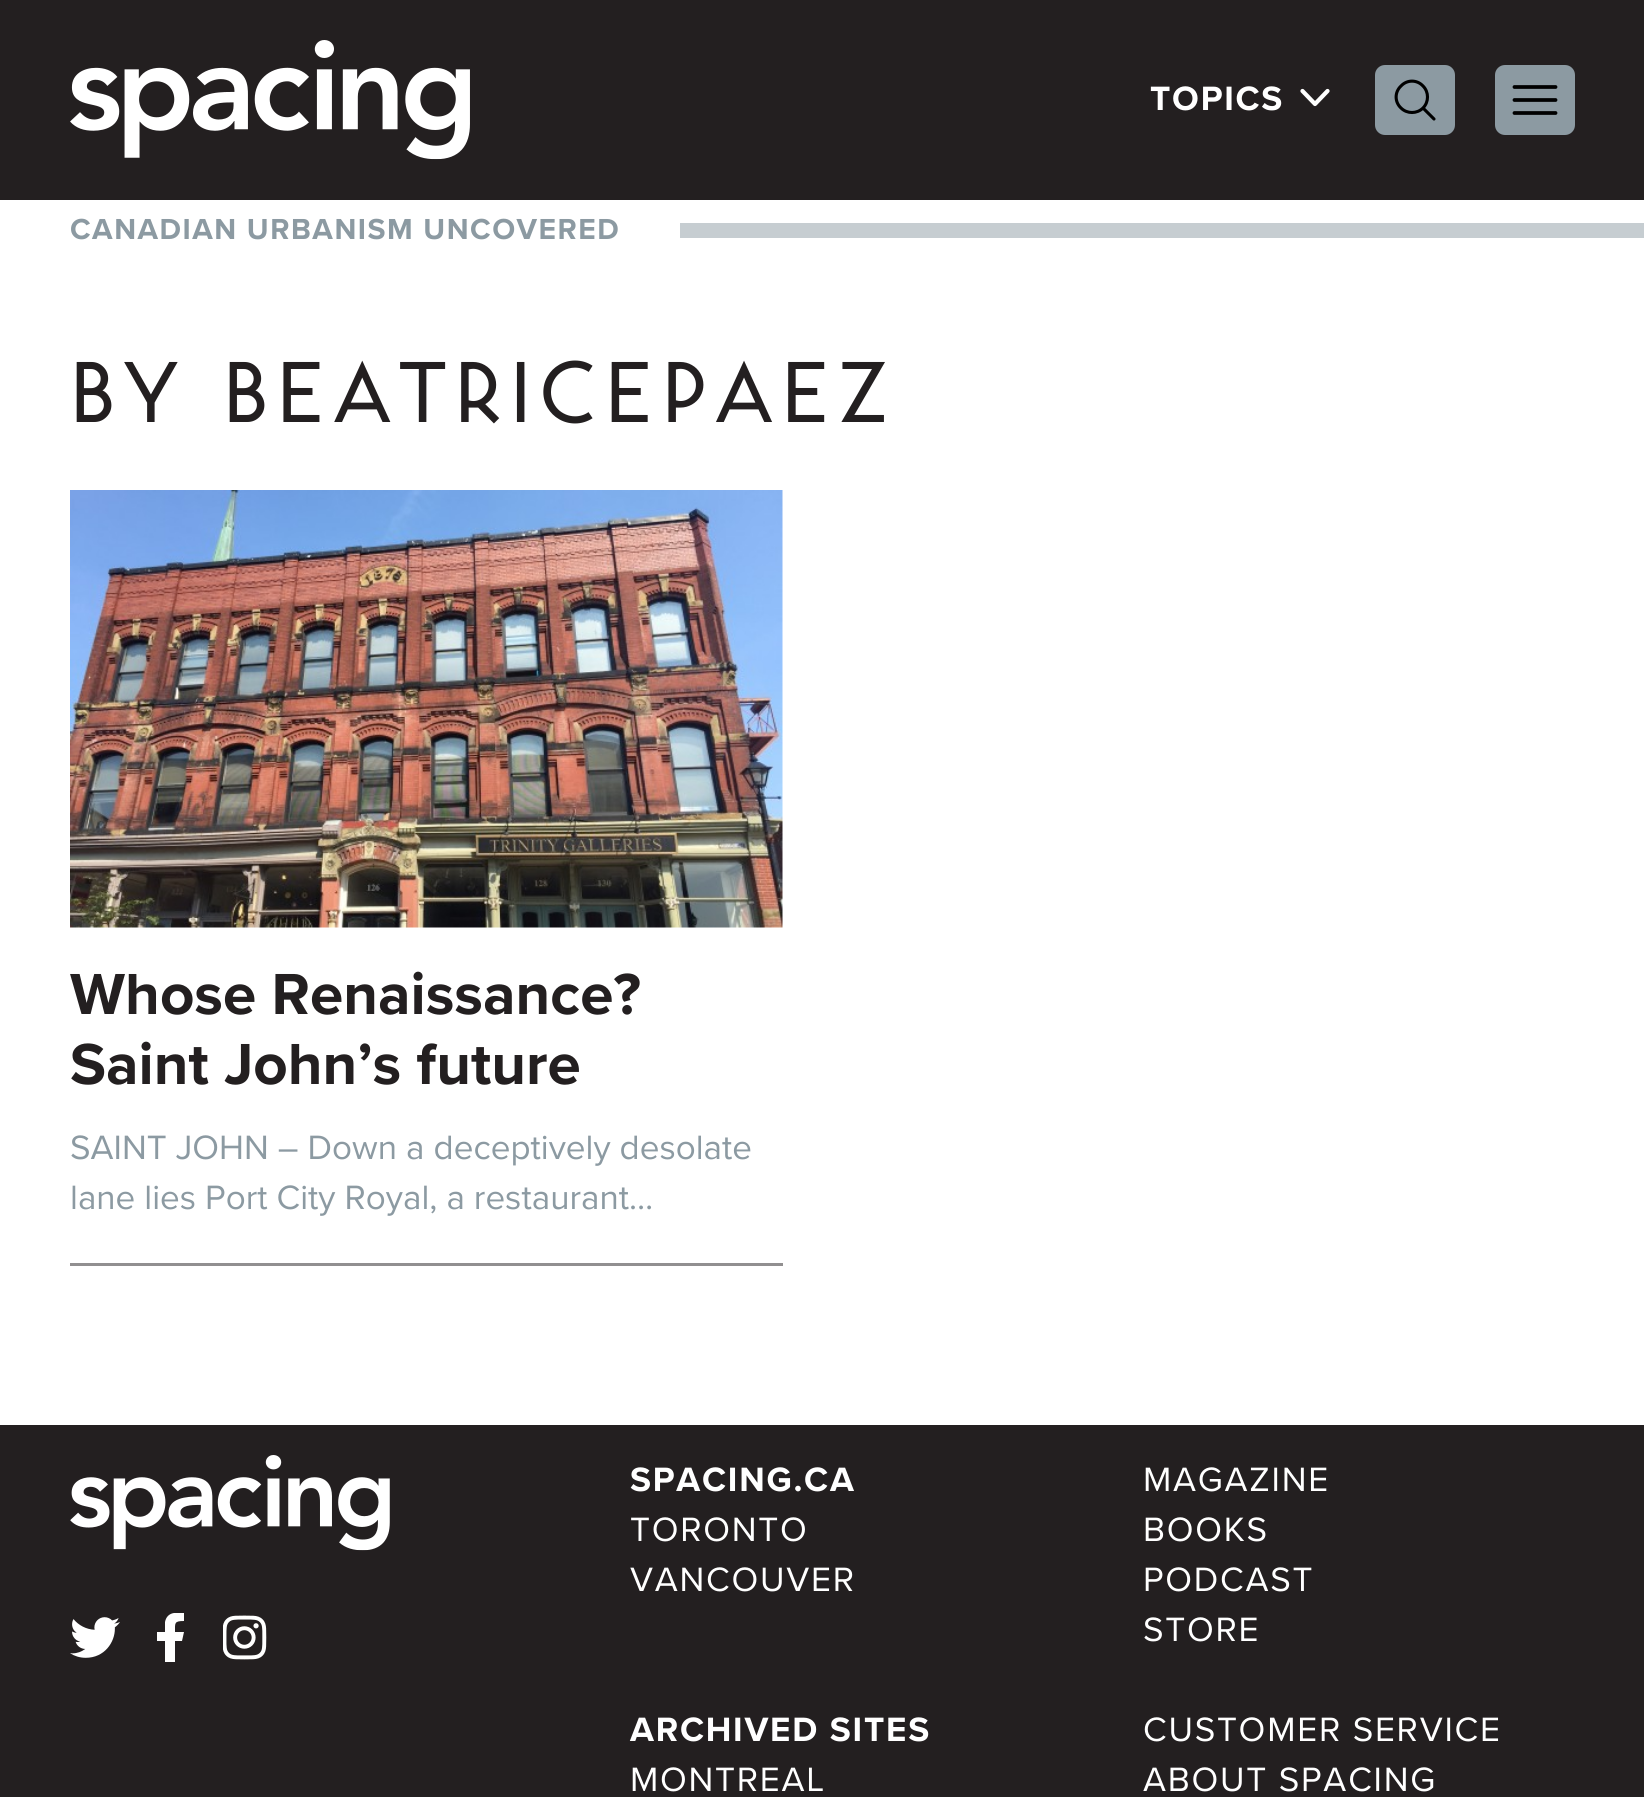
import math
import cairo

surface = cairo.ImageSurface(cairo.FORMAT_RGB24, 1644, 1797)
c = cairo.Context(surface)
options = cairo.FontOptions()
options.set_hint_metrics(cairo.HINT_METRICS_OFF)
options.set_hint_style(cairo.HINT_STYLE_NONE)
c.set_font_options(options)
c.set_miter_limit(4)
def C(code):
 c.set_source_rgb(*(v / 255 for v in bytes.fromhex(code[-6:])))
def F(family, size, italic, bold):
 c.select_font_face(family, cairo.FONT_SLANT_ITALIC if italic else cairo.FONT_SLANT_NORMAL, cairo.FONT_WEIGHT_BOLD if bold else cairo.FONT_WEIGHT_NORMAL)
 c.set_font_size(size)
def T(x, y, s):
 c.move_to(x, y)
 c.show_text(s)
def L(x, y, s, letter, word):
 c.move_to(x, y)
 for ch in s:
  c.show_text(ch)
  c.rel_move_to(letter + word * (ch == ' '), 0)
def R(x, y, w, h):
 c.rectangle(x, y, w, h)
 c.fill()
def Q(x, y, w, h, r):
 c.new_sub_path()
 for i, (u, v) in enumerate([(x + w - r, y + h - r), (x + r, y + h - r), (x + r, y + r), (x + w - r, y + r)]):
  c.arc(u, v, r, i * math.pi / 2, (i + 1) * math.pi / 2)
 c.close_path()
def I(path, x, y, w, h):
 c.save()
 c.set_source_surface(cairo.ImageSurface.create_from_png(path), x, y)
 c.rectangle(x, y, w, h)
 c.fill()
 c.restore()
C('231f20')
c.paint()
C('ffffff')
R(0,200,1644,1225)
I('1.png',70,40,400,120)
F('Proxima Nova',35,0,1)
L(1150,110,'TOPICS',1.75,0)
c.new_path()
c.move_to(1327.5,91)
c.line_to(1315,104)
c.line_to(1302.5,91)
c.set_line_width(4.2)
c.set_line_cap(cairo.LINE_CAP_ROUND)
c.set_line_join(cairo.LINE_JOIN_ROUND)
c.stroke()
C('8c9aa2')
Q(1375,65,80,70,10)
c.fill()
c.new_path()
c.move_to(1434,119)
c.line_to(1423,108)
c.move_to(1423,108)
c.curve_to(1429,102,1429,92,1423,86)
c.curve_to(1417,79.5,1407,79.5,1401,86)
c.curve_to(1394.5,92,1394.5,102,1401,108)
c.curve_to(1407,114,1417,114,1423,108)
c.close_path()
C('000000')
c.set_line_width(3.1)
c.stroke()
C('8c9aa2')
Q(1495,65,80,70,10)
c.fill()
c.new_path()
c.move_to(1514.5,87)
c.line_to(1555.5,87)
c.move_to(1514.5,100)
c.line_to(1555.5,100)
c.move_to(1514.5,113)
c.line_to(1555.5,113)
C('000000')
c.set_line_width(3.8)
c.stroke()
F('Proxima Nova',30,0,1)
C('8c9aa2')
L(70,239,'CANADIAN URBANISM UNCOVERED',1.5,0)
C('c6cdd1')
R(680,223,964,15)
F('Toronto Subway',90,0,0)
C('231f20')
L(70,422,'BY BEATRICEPAEZ',9,0)
C('918f90')
R(70,1263,713,3)
I('2.png',70,490,713,438)
F('Proxima Nova',60,0,1)
C('231f20')
T(70,1014,'Whose Renaissance?')
T(70,1084,'Saint John’s future')
F('Proxima Nova',35,0,0)
C('8c9aa2')
T(70,1159,'SAINT JOHN – Down a deceptively desolate')
T(70,1209,'lane lies Port City Royal, a restaurant…')
I('3.png',70,1455,320,96)
I('4.png',70,1617,50,41)
c.save()
c.rectangle(155,1613,30,50)
c.clip()
C('ffffff')
c.new_path()
c.move_to(182,1641)
c.line_to(184,1632)
c.line_to(175,1632)
c.curve_to(175,1623,174,1621,184,1621)
c.line_to(184,1613)
c.curve_to(176,1612,167,1612,165,1622)
c.line_to(165,1632)
c.line_to(157,1632)
c.line_to(157,1641)
c.line_to(165,1641)
c.line_to(165,1662)
c.line_to(175,1662)
c.line_to(175,1641)
c.close_path()
c.fill()
c.restore()
I('5.png',223,1615,44,45)
F('Proxima Nova',35,0,1)
C('ffffff')
L(630,1491,'SPACING.CA',1.75,0)
F('Proxima Nova',35,0,0)
L(630,1541,'TORONTO',1.75,0)
L(630,1591,'VANCOUVER',1.75,0)
L(1143,1491,'MAGAZINE',1.75,0)
L(1143,1541,'BOOKS',1.75,0)
L(1143,1591,'PODCAST',1.75,0)
L(1143,1641,'STORE',1.75,0)
F('Proxima Nova',35,0,1)
L(630,1741,'ARCHIVED SITES',1.75,0)
F('Proxima Nova',35,0,0)
L(630,1791,'MONTREAL',1.75,0)
L(1143,1741,'CUSTOMER SERVICE',1.75,0)
L(1143,1791,'ABOUT SPACING',1.75,0)
surface.write_to_png('o.png')
